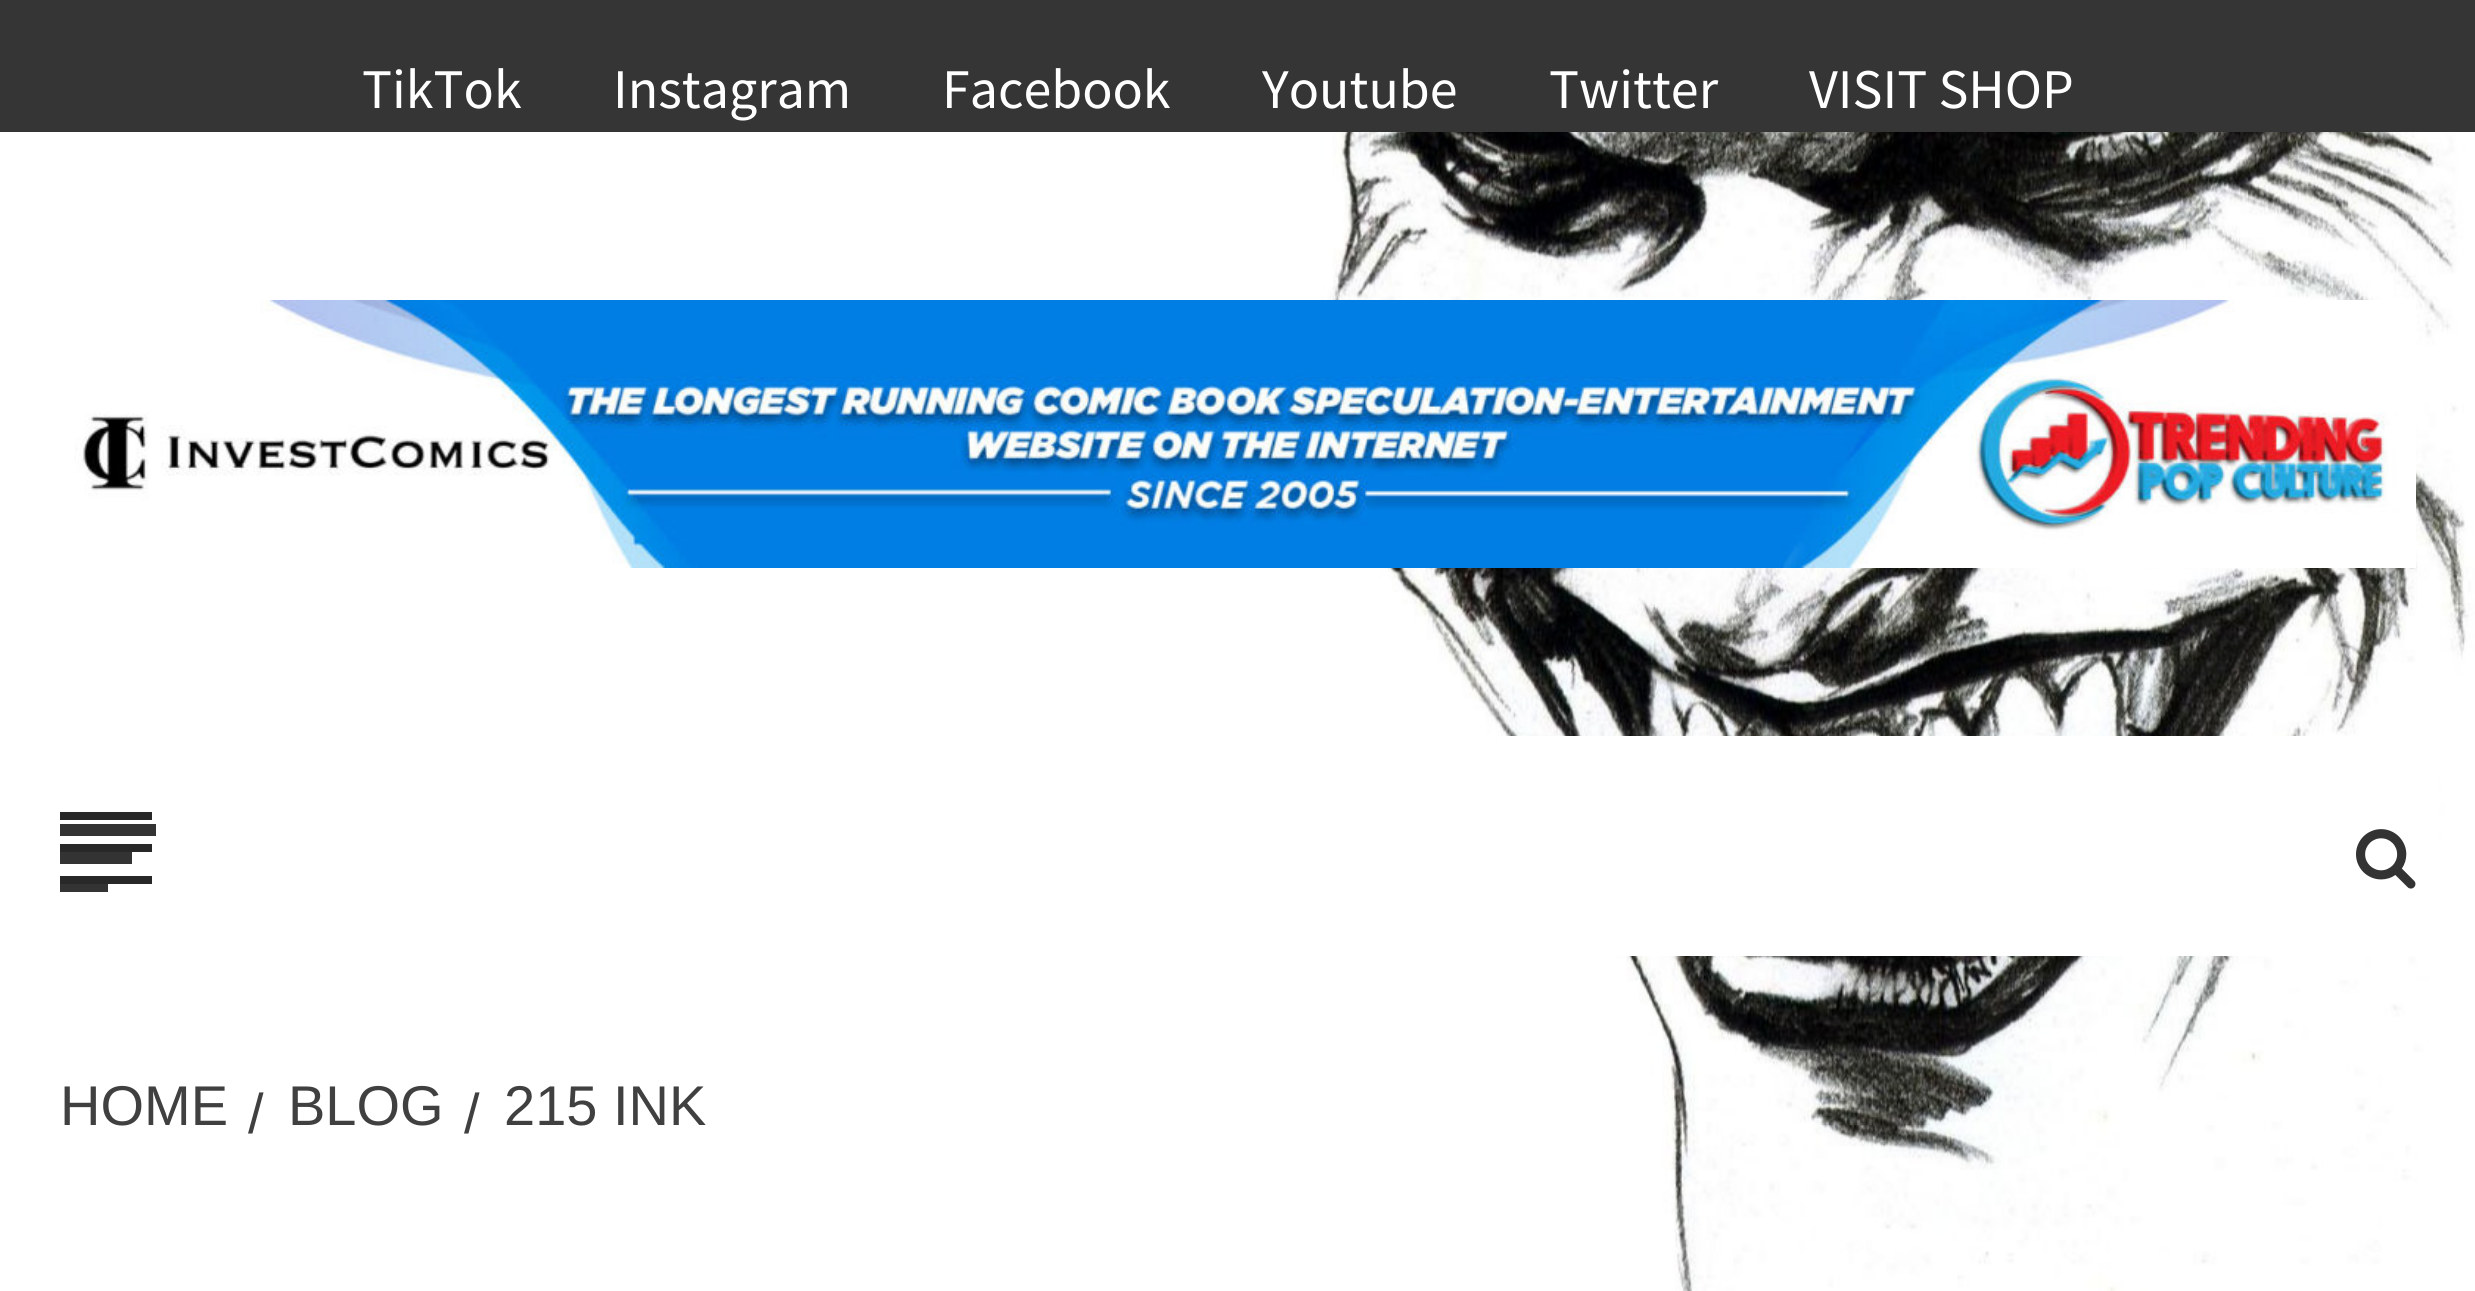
import math
import cairo

surface = cairo.ImageSurface(cairo.FORMAT_RGB24, 2475, 1291)
c = cairo.Context(surface)
options = cairo.FontOptions()
options.set_hint_metrics(cairo.HINT_METRICS_OFF)
options.set_hint_style(cairo.HINT_STYLE_NONE)
c.set_font_options(options)
c.set_miter_limit(4)
def C(code):
 c.set_source_rgb(*(v / 255 for v in bytes.fromhex(code[-6:])))
def F(family, size, italic, bold):
 c.select_font_face(family, cairo.FONT_SLANT_ITALIC if italic else cairo.FONT_SLANT_NORMAL, cairo.FONT_WEIGHT_BOLD if bold else cairo.FONT_WEIGHT_NORMAL)
 c.set_font_size(size)
def T(x, y, s):
 c.move_to(x, y)
 c.show_text(s)
def R(x, y, w, h):
 c.rectangle(x, y, w, h)
 c.fill()
def I(path, x, y, w, h):
 c.save()
 c.set_source_surface(cairo.ImageSurface.create_from_png(path), x, y)
 c.rectangle(x, y, w, h)
 c.fill()
 c.restore()
C('ffffff')
c.paint()
I('1.png',0,132,2475,1159)
C('353535')
R(0,0,2475,132)
F('Source Sans Pro',56,0,0)
C('ffffff')
T(362,108,'TikTok')
T(613,108,'Instagram')
T(942,108,'Facebook')
T(1262,108,'Youtube')
T(1549,108,'Twitter')
T(1809,108,'VISIT SHOP')
I('2.png',74,300,2342,268)
R(1498,736,941,220)
C('282828')
R(60,844,92,8)
R(60,812,92,8)
R(60,876,92,8)
C('333333')
R(60,824,96,12)
R(60,852,72,12)
R(60,884,48,8)
I('3.png',2356,829,60,60)
F('Liberation Sans',56,0,0)
C('404040')
T(60,1125,'HOME')
T(248,1133,'/')
T(288,1125,'BLOG')
T(464,1133,'/')
T(504,1125,'215 INK')
surface.write_to_png('o.png')
